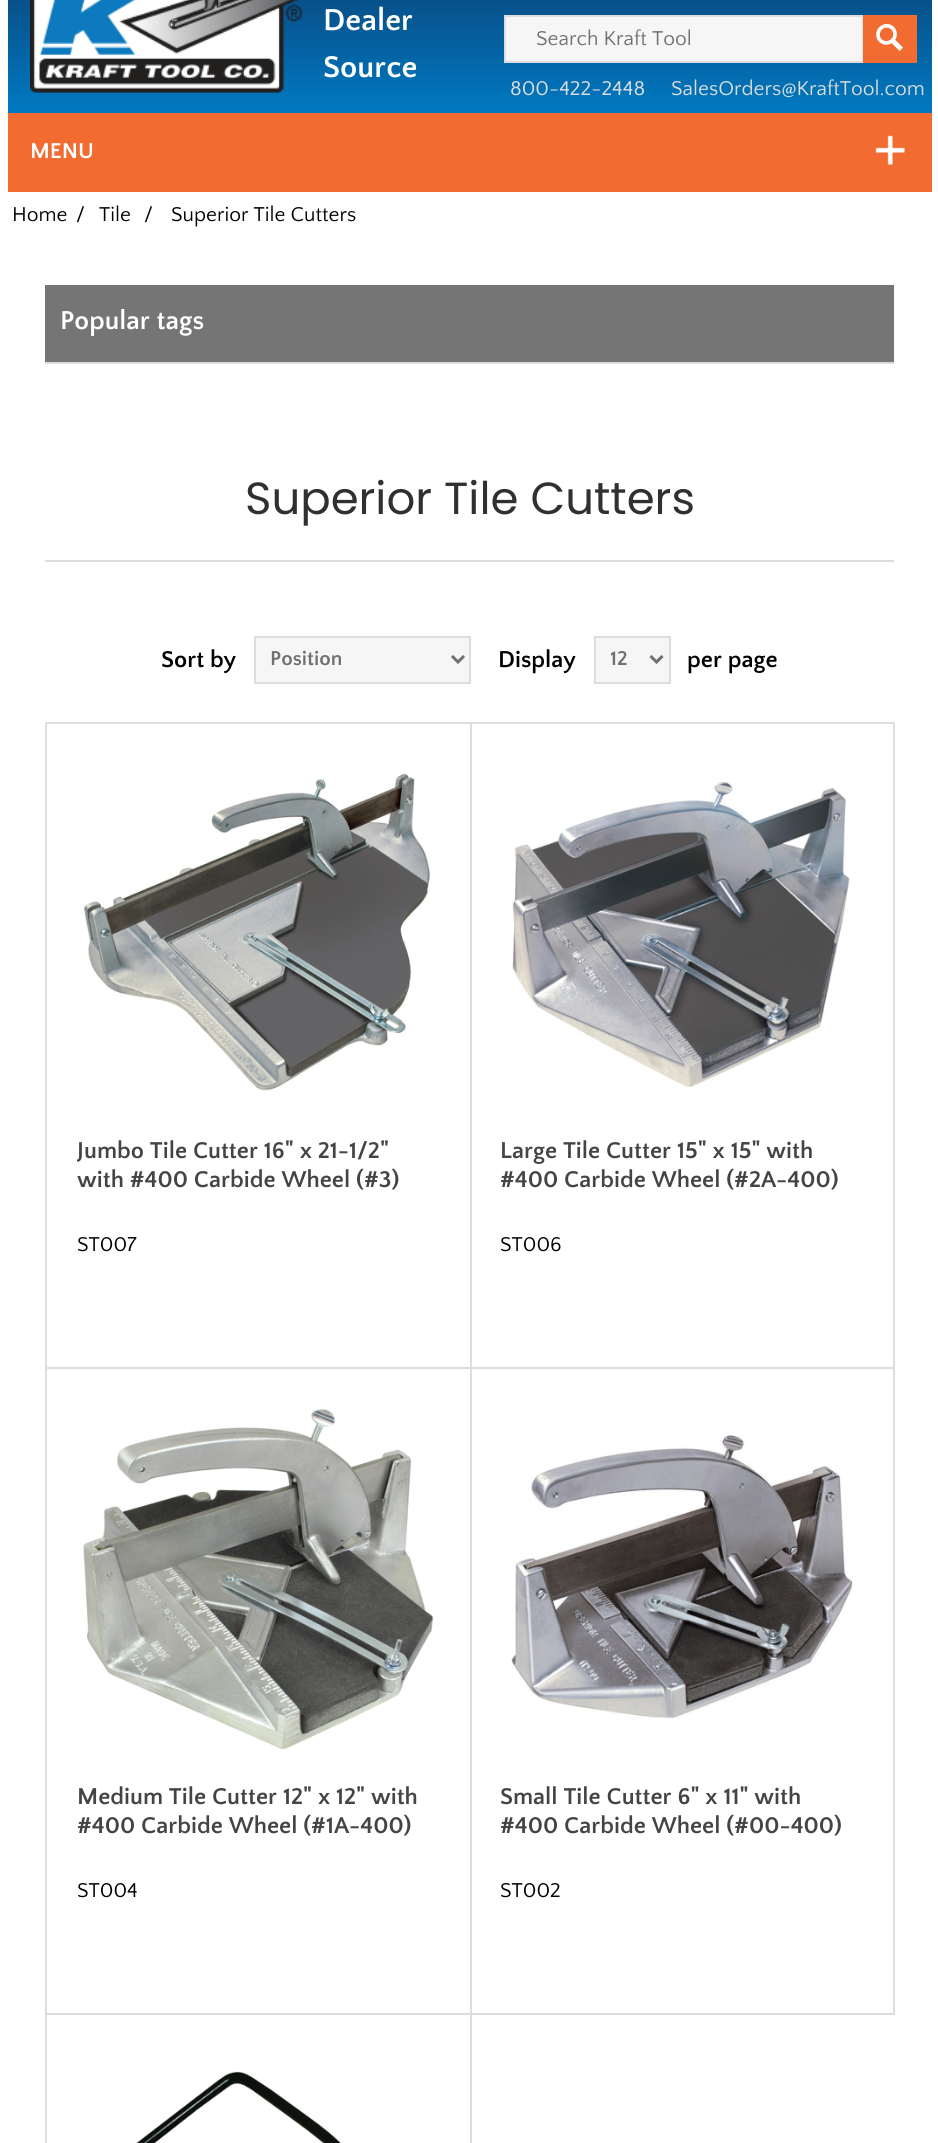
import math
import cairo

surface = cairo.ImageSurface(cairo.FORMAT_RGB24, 938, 2143)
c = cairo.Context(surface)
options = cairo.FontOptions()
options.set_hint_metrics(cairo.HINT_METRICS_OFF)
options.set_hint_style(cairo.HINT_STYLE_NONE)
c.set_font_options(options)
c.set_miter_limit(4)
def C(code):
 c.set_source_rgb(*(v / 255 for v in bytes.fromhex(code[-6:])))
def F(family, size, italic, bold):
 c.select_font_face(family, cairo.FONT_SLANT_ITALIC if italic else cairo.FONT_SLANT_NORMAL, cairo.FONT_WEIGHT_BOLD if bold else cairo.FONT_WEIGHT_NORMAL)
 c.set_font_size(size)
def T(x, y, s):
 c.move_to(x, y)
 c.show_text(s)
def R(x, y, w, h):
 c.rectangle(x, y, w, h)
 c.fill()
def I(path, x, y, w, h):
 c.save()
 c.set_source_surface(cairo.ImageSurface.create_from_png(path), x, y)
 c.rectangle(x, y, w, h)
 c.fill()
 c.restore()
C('ffffff')
c.paint()
gradient = cairo.LinearGradient(470,-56,470,113)
gradient.add_color_stop_rgba(0,0.039,0.239,0.431,1)
gradient.add_color_stop_rgba(1,0,0.475,0.761,1)
c.set_source(gradient)
R(8,0,924,113)
I('1.png',30,0,273,93)
F('Quattrocento Sans',31.5,0,1)
C('ffffff')
T(323,30,'Dealer')
T(323,77,'Source')
C('f6f6f6')
c.rectangle(505,16,358,46)
c.fill_preserve()
C('dddddd')
c.stroke()
F('Quattrocento Sans',21,0,0)
C('707070')
T(536,45,'Search Kraft Tool')
C('f26b31')
R(863,15,54,48)
I('2.png',876,24,27,27)
C('dddddd')
T(510,95,'800-422-2448')
T(671,95,'SalesOrders@KraftTool.com')
C('f26b31')
R(8,113,924,79)
I('3.png',875,135,30,30)
F('Quattrocento Sans',22.5,0,1)
C('ffffff')
T(30,158,'MENU')
F('Quattrocento Sans',21,0,0)
C('000000')
T(12,221,'Home')
T(76,221,'/')
T(99,221,'Tile')
T(144,221,'/')
T(171,221,'Superior Tile Cutters')
C('757575')
R(45,285,849,77)
C('dddddd')
R(45,362,849,2)
F('Quattrocento Sans',27,0,1)
C('ffffff')
T(60,329,'Popular tags')
C('dddddd')
R(45,560,849,2)
F('Poppins',45,0,0)
C('303030')
T(245,514,'Superior Tile Cutters')
F('Quattrocento Sans',24,0,1)
C('000000')
T(161,667,'Sort by')
C('f6f6f6')
c.rectangle(255,637,215,46)
c.fill_preserve()
C('dddddd')
c.stroke()
c.new_path()
c.move_to(452,656)
c.line_to(458,662)
c.line_to(464,656)
C('707070')
c.set_line_width(3)
c.stroke()
F('Quattrocento Sans',21,0,1)
T(270,665,'Position')
F('Quattrocento Sans',24,0,1)
C('000000')
T(498,667,'Display')
C('f6f6f6')
c.rectangle(595,637,75,46)
c.fill_preserve()
C('dddddd')
c.set_line_width(2)
c.stroke()
c.new_path()
c.move_to(650.5,656)
c.line_to(656.5,662)
c.line_to(662.5,656)
C('707070')
c.set_line_width(3)
c.stroke()
c.save()
c.rectangle(611,647,25,27)
c.clip()
F('Quattrocento Sans',21,0,1)
T(610,665,'12')
c.restore()
C('000000')
T(687,667,'per page')
C('dddddd')
R(45,722,849,2)
R(45,722,2,1421)
R(470,723,2,645)
R(47,1367,424,2)
I('4.png',83,773,347,318)
c.save()
c.rectangle(77,1137,363,86)
c.clip()
C('444444')
T(77,1158,'Jumbo Tile Cutter 16" x 21-1/2"')
c.restore()
C('444444')
T(77,1187,'with #400 Carbide Wheel (#3)')
F('Quattrocento Sans',21,0,0)
C('000000')
T(77,1251,'ST007')
C('dddddd')
R(893,723,2,645)
R(471,1367,423,2)
I('5.png',512,782,338,305)
F('Quattrocento Sans',24,0,1)
C('444444')
T(500,1158,'Large Tile Cutter 15" x 15" with')
T(500,1187,'#400 Carbide Wheel (#2A-400)')
F('Quattrocento Sans',21,0,0)
C('000000')
T(500,1251,'ST006')
C('dddddd')
R(470,1368,2,775)
R(47,2013,424,2)
I('6.png',83,1409,351,341)
F('Quattrocento Sans',24,0,1)
C('444444')
T(77,1804,'Medium Tile Cutter 12" x 12" with')
T(77,1833,'#400 Carbide Wheel (#1A-400)')
F('Quattrocento Sans',21,0,0)
C('000000')
T(77,1897,'ST004')
C('dddddd')
R(893,1368,2,647)
R(471,2013,423,2)
I('7.png',511,1435,342,284)
F('Quattrocento Sans',24,0,1)
C('444444')
T(500,1804,'Small Tile Cutter 6" x 11" with')
T(500,1833,'#400 Carbide Wheel (#00-400)')
F('Quattrocento Sans',21,0,0)
C('000000')
T(500,1897,'ST002')
I('8.png',136,2071,205,72)
surface.write_to_png('o.png')
